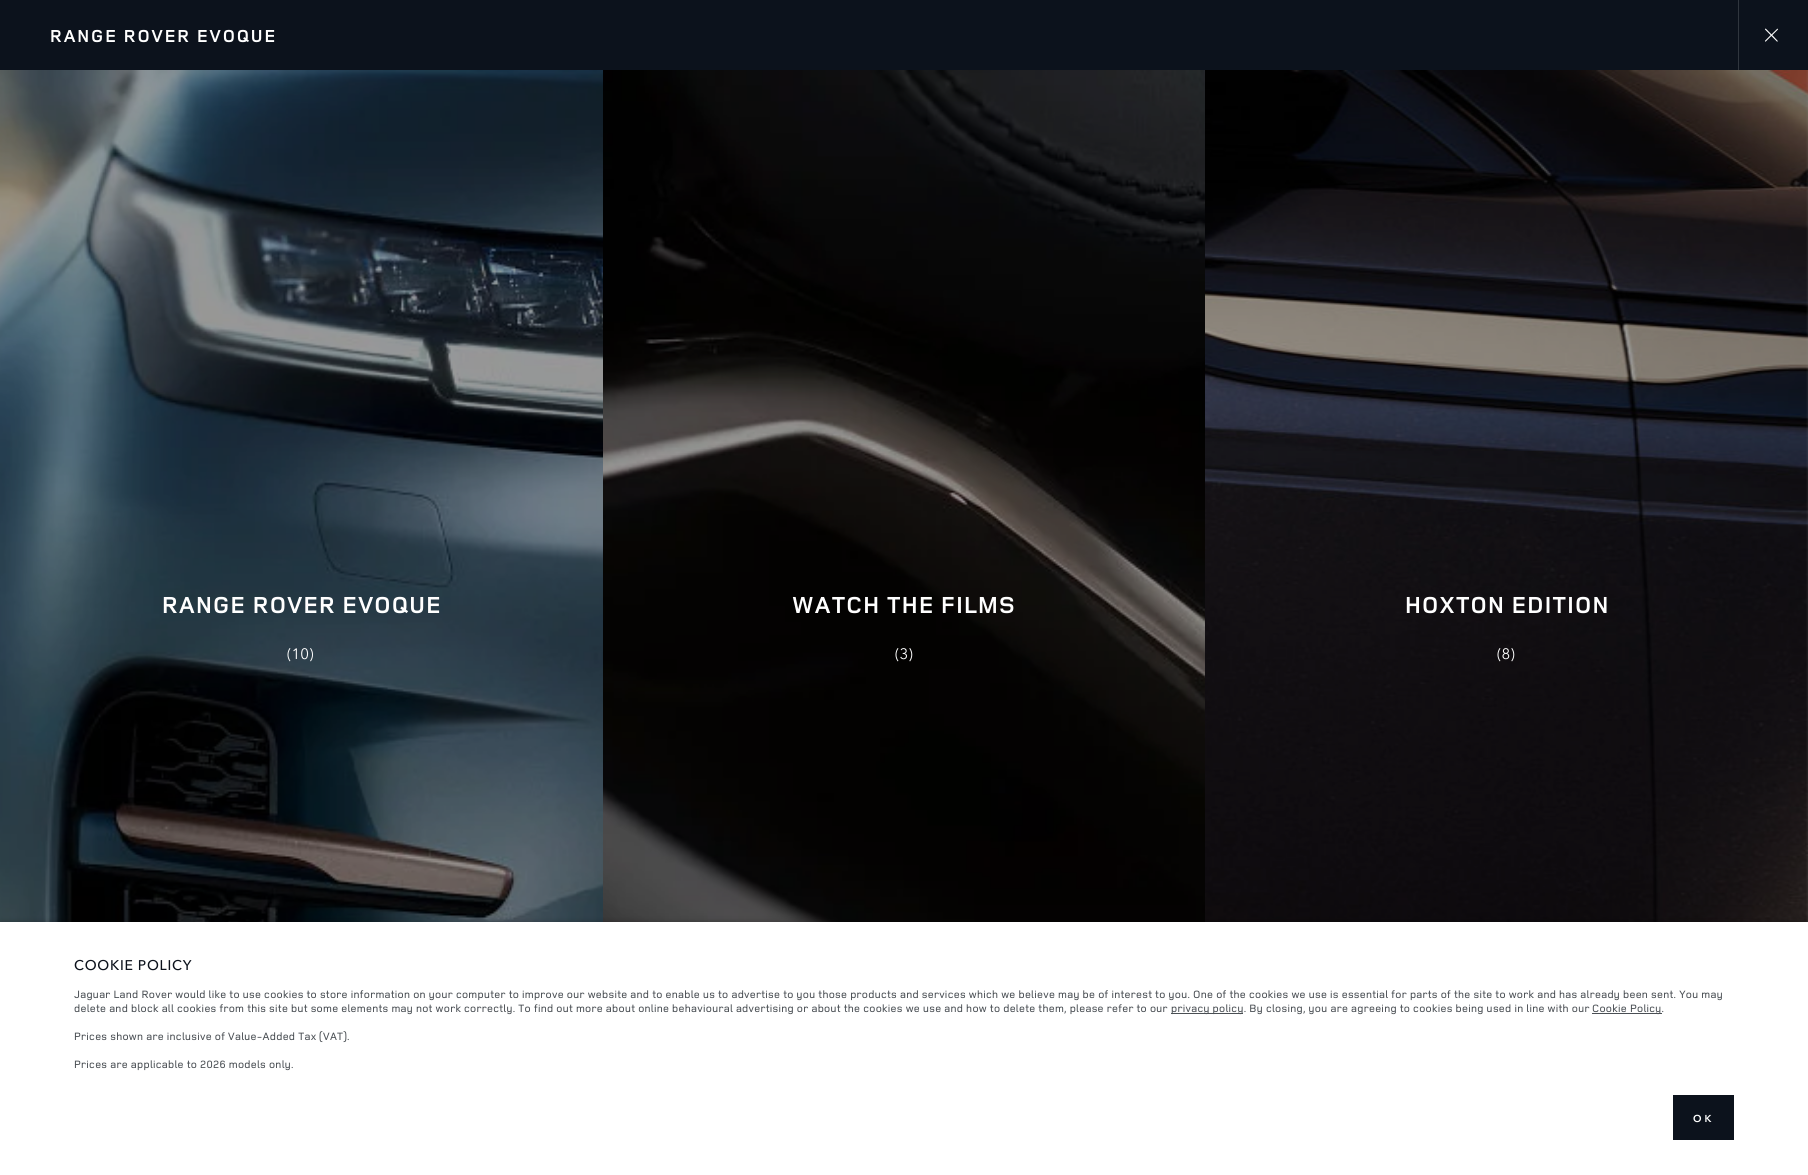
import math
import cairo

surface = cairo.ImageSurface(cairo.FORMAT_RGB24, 1808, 1175)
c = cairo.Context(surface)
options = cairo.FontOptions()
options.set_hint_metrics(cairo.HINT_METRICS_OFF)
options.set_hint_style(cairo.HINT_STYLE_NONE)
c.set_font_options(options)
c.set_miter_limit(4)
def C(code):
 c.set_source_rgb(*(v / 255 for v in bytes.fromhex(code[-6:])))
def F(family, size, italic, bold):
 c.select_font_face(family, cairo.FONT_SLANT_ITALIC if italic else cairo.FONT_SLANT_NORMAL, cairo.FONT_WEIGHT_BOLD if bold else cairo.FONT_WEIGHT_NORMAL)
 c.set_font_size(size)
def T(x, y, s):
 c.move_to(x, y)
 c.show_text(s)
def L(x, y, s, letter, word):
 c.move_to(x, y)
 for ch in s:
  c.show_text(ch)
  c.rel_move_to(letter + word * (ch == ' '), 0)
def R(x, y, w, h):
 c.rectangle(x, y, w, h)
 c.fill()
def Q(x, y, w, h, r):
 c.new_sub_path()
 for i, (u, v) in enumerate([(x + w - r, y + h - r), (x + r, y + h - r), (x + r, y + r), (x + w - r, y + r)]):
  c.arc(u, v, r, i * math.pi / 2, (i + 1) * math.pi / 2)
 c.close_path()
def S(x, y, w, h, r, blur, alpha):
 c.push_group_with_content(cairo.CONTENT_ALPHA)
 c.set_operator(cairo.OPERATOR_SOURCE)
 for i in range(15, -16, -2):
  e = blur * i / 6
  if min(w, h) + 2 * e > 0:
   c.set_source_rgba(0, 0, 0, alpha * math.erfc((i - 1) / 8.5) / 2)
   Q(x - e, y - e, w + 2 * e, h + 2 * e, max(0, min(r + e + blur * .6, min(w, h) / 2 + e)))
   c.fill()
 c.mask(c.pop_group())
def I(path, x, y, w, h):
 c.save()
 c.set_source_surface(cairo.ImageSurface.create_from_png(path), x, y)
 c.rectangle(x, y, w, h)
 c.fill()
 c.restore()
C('ffffff')
c.paint()
C('000000')
S(0,1,1808,72,0,2,.1)
c.save()
c.rectangle(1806,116,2,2)
c.clip()
C('010101')
S(0,73,1808,44,0,2,.1)
c.restore()
C('0c121c')
R(0,0,1808,70)
F('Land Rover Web',18,0,1)
C('ffffff')
L(50,42,'RANGE ROVER EVOQUE',1.9,0)
C('30363e')
R(1738,0,1,70)
I('1.png',1765,28,13,14)
I('2.png',0,70,603,852)
F('Land Rover Web',24,0,1)
C('ffffff')
L(162,613,'RANGE ROVER EVOQUE',1.25,0)
F('Avenir Next',15,0,0)
T(287,659,'(10)')
I('3.png',603,70,602,852)
F('Land Rover Web',24,0,1)
L(792,613,'WATCH THE FILMS',1.25,0)
F('Avenir Next',15,0,0)
T(895,659,'(3)')
I('4.png',1205,70,603,852)
c.set_source_rgba(0,0,0,0.4)
R(1205,70,603,852)
F('Land Rover Web',24,0,1)
C('ffffff')
L(1405,613,'HOXTON EDITION',1.25,0)
F('Avenir Next',15,0,0)
T(1497,659,'(8)')
C('010101')
S(0,922,1808,253,0,3,.25)
C('ffffff')
R(0,922,1808,253)
F('Avenir Next Medium',14,0,0)
C('0c121c')
L(74,970,'COOKIE POLICY',.75,0)
F('Land Rover Web Medium',11,0,0)
C('4a4f54')
L(74,998,'Jaguar Land Rover would like to use cookies to store information on your computer to improve our website and to enable us to advertise to you those products and services which we believe may be of interest to you. One of the cookies we use is essential for parts of the site to work and has already been sent. You may',.3,0)
L(74,1012,'delete and block all cookies from this site but some elements may not work correctly. To find out more about online behavioural advertising or about the cookies we use and how to delete them, please refer to our',.3,0)
R(1171,1013,72,1)
L(1171,1012,'privacy policy. By closing, you are agreeing to cookies being used in line with our',.3,0)
R(1592,1013,70,1)
L(1592,1012,'Cookie Policy.',.3,0)
L(74,1040,'Prices shown are inclusive of Value-Added Tax (VAT).',.3,0)
L(74,1068,'Prices are applicable to 2026 models only.',.3,0)
C('0c121c')
R(1673,1095,61,45)
F('Avenir Next SemiBold',10,0,0)
C('ffffff')
L(1693,1122,'OK',3,0)
surface.write_to_png('o.png')
